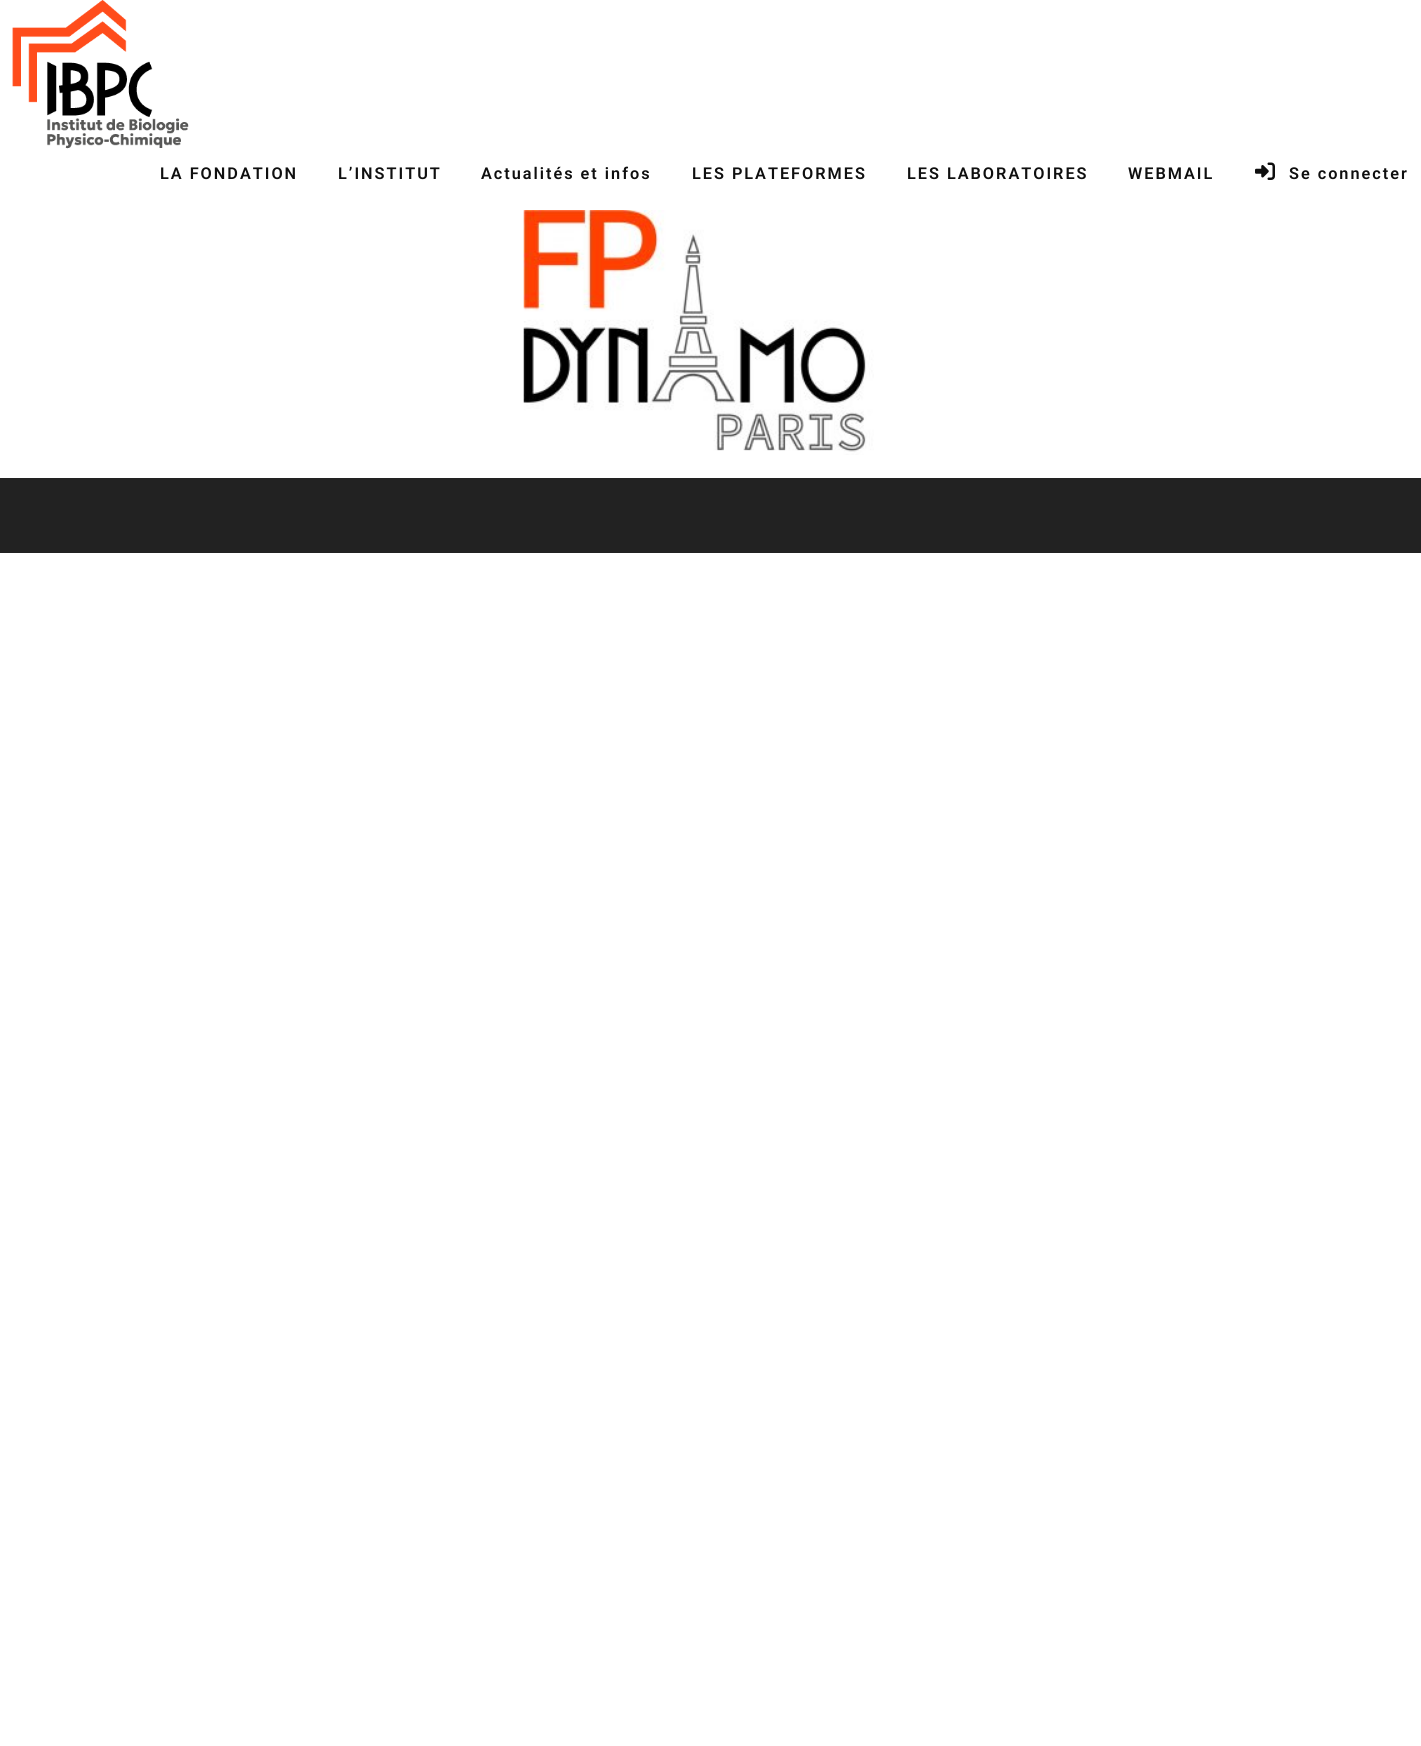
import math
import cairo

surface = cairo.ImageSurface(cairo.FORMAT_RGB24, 1421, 1746)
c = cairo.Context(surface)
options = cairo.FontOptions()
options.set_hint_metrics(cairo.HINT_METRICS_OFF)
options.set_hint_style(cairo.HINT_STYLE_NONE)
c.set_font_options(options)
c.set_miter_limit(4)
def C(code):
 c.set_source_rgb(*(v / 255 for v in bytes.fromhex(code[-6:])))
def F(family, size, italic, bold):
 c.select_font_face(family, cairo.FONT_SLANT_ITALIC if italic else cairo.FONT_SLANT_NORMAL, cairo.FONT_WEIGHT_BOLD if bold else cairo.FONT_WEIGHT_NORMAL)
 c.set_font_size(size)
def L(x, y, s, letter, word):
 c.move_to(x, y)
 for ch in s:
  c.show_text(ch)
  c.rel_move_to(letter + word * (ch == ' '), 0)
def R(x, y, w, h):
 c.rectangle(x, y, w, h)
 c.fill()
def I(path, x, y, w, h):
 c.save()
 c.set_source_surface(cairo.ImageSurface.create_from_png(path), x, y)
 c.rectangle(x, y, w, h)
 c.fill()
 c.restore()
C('ffffff')
c.paint()
I('1.png',12,0,177,149)
F('Roboto SemiBold',16.25,0,0)
C('0f0f0f')
L(160,179,'LA FONDATION',2,0)
L(338,179,'L’INSTITUT',2,0)
L(481,179,'Actualités et infos',2,0)
L(692,179,'LES PLATEFORMES',2,0)
L(907,179,'LES LABORATOIRES',2,0)
L(1128,179,'WEBMAIL',2,0)
I('2.png',1255,162,20,18)
L(1289,179,'Se connecter',2,0)
I('3.png',523,210,351,245)
C('222222')
R(0,478,1421,75)
surface.write_to_png('o.png')
